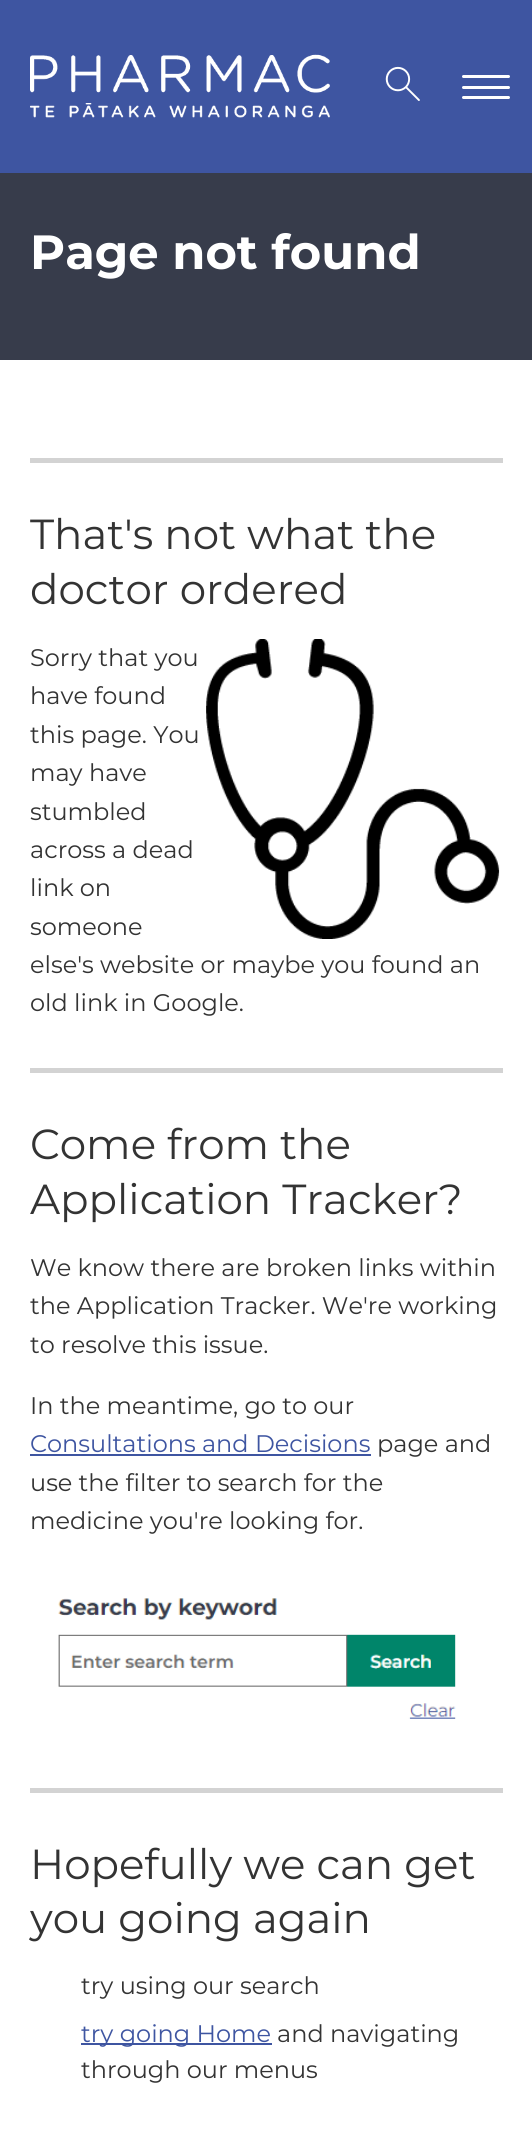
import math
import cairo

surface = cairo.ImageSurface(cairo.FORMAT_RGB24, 532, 2130)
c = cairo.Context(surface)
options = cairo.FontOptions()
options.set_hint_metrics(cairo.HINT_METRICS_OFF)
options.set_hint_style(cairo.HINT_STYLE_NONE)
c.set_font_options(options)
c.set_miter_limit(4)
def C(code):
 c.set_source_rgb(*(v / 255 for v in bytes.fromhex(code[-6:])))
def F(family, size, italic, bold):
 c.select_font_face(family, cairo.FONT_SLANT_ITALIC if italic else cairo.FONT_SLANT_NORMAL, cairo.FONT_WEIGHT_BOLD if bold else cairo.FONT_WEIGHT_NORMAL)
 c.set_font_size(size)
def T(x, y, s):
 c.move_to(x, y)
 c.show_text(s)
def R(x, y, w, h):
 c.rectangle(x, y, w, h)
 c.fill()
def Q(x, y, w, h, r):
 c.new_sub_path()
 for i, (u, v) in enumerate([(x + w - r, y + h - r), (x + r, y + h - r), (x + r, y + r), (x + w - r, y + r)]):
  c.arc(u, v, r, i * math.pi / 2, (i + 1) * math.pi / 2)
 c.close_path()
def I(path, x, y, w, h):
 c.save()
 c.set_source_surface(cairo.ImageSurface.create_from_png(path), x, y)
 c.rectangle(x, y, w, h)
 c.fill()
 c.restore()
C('ffffff')
c.paint()
C('3e55a1')
R(0,0,532,173)
I('1.png',30,54,300,64)
I('2.png',385,66,35,35)
C('ffffff')
Q(462,86,48,3,1.5)
c.fill()
Q(462,75,48,3,1.5)
c.fill()
Q(462,96,48,3,1.5)
c.fill()
C('373c4b')
R(0,173,532,187)
F('Montserrat',48,0,1)
C('ffffff')
T(30,269,'Page not found')
C('d3d3d3')
R(30,458,473,5)
F('Montserrat',42,0,0)
C('333333')
T(30,549,'That\'s not what the')
T(30,604,'doctor ordered')
I('3.png',206,639,294,300)
F('Montserrat',24,0,0)
T(30,666,'Sorry that you')
T(30,704,'have found')
T(30,743,'this page. You')
T(30,781,'may have')
T(30,820,'stumbled')
T(30,858,'across a dead')
T(30,896,'link on')
T(30,935,'someone')
T(30,973,'else\'s website or maybe you found an')
T(30,1011,'old link in Google.')
C('d3d3d3')
R(30,1068,473,5)
F('Montserrat',42,0,0)
C('333333')
T(30,1159,'Come from the')
T(30,1214,'Application Tracker?')
F('Montserrat',24,0,0)
T(30,1276,'We know there are broken links within')
T(30,1314,'the Application Tracker. We\'re working')
T(30,1353,'to resolve this issue.')
T(30,1414,'In the meantime, go to our')
C('3e55a1')
T(30,1452,'Consultations and Decisions')
R(30,1454,341,2)
C('333333')
T(377,1452,'page and')
T(30,1491,'use the filter to search for the')
T(30,1529,'medicine you\'re looking for.')
I('4.png',58,1598,398,121)
C('d3d3d3')
R(30,1788,473,5)
F('Montserrat',42,0,0)
C('333333')
T(30,1879,'Hopefully we can get')
T(30,1933,'you going again')
F('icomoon',24,0,0)
C('46b8aa')
T(51,1995,'')
F('Montserrat',24,0,0)
C('333333')
T(81,1994,'try using our search')
F('icomoon',24,0,0)
C('46b8aa')
T(51,2043,'')
C('3e55a1')
R(81,2043,191,2)
F('Montserrat',24,0,0)
T(81,2042,'try going Home')
C('333333')
T(277,2042,'and navigating')
T(81,2078,'through our menus')
surface.write_to_png('o.png')
